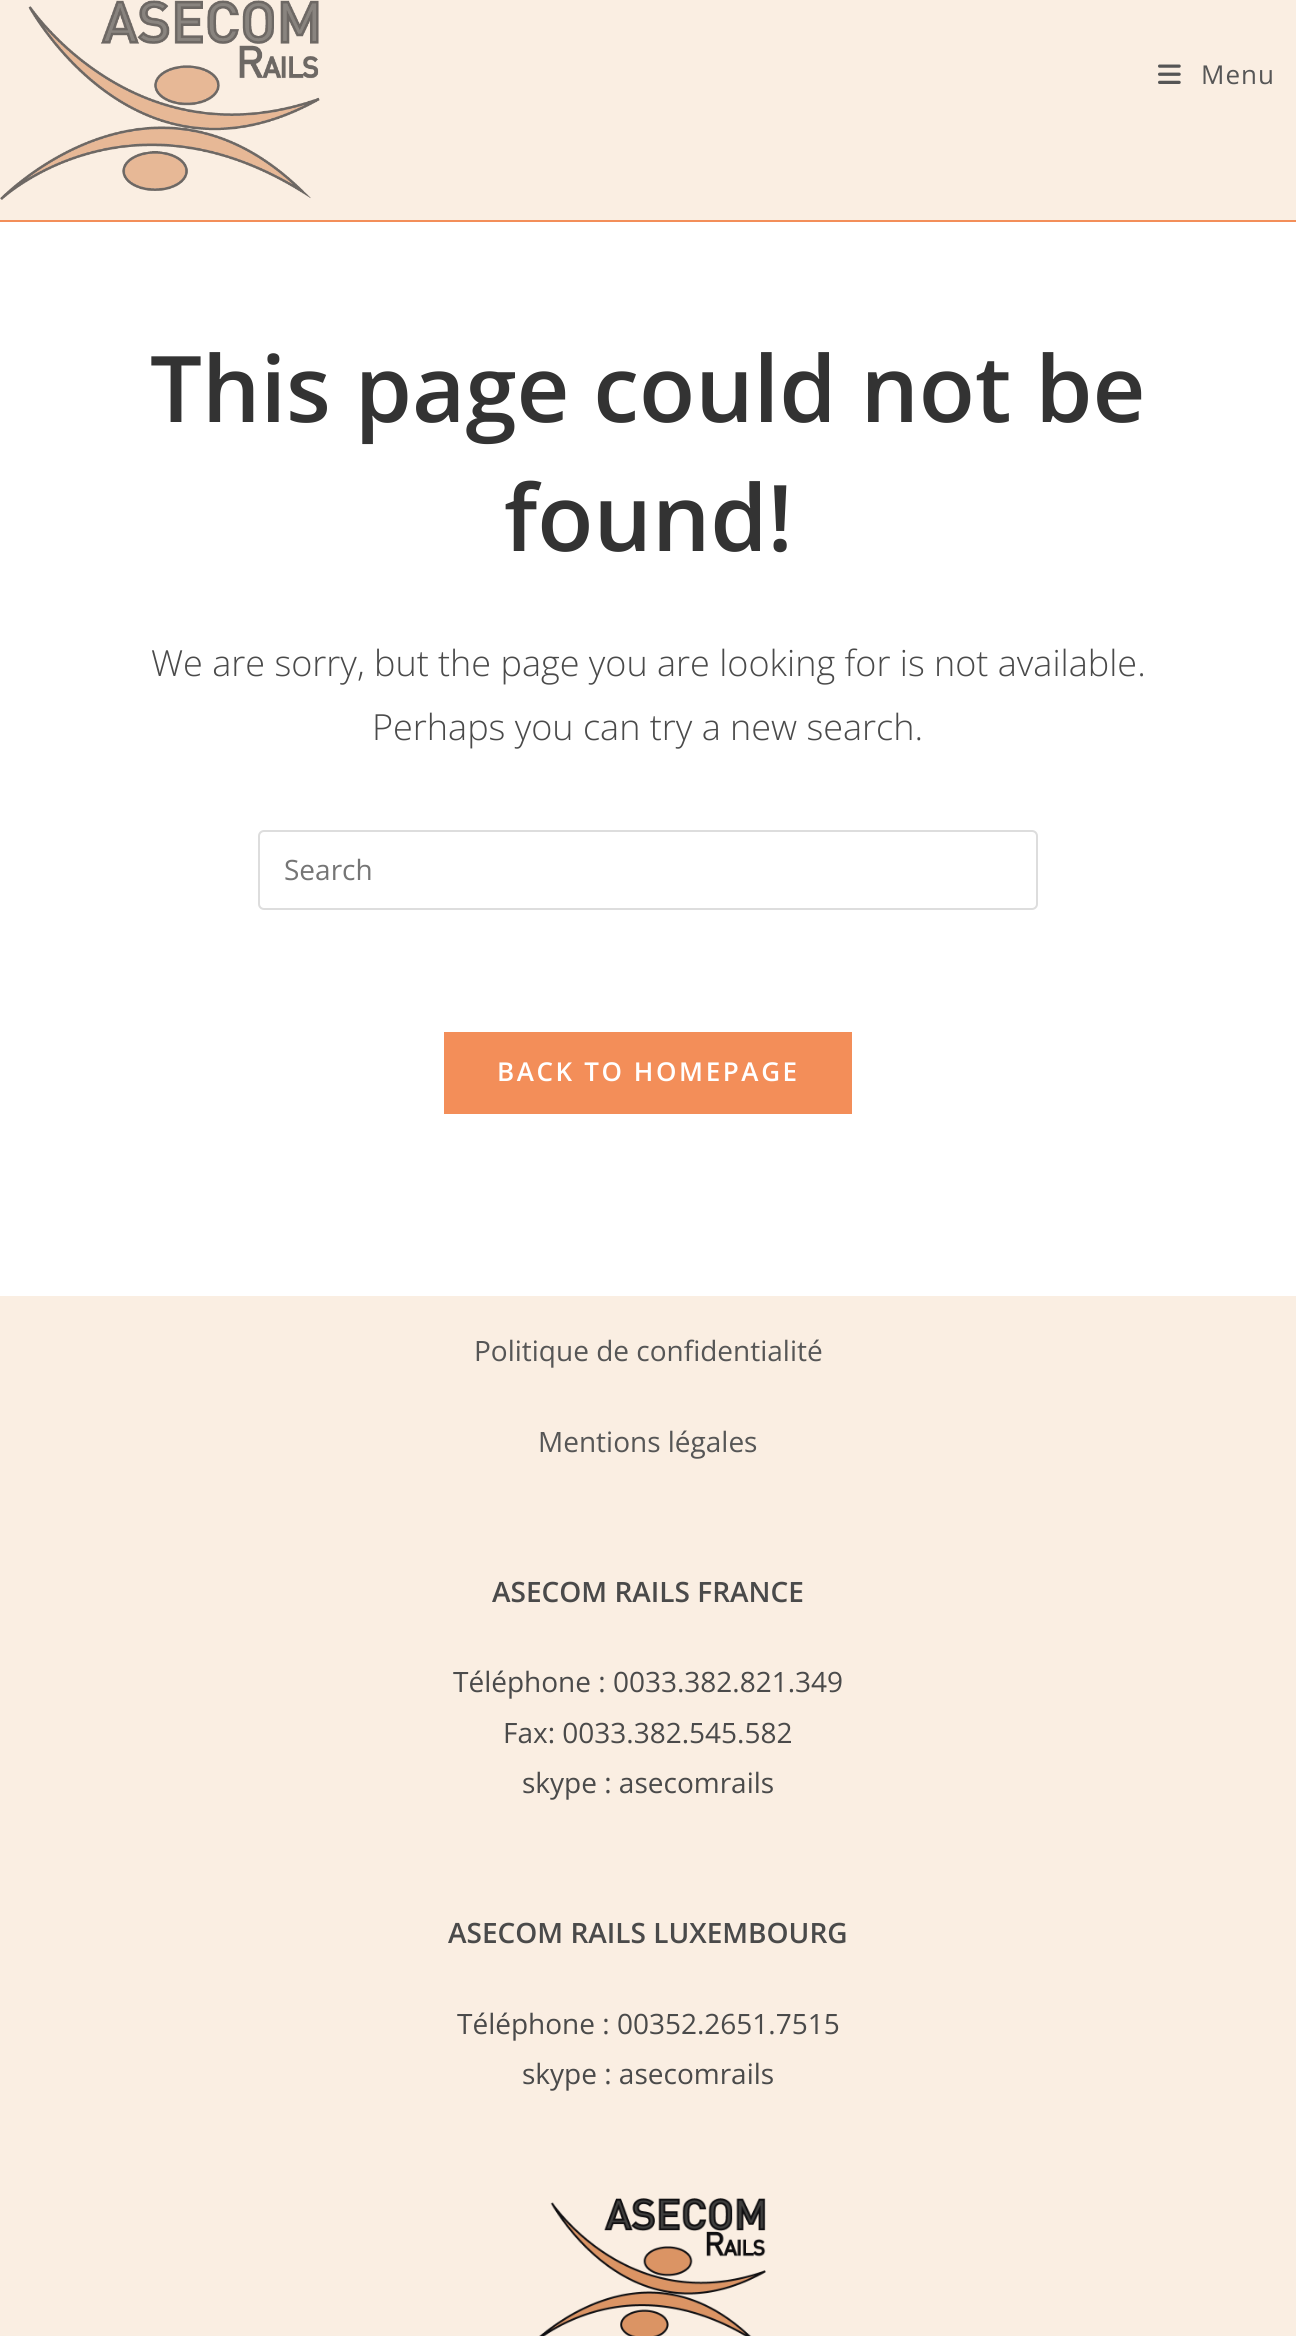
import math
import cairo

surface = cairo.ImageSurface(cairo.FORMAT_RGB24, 1296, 2336)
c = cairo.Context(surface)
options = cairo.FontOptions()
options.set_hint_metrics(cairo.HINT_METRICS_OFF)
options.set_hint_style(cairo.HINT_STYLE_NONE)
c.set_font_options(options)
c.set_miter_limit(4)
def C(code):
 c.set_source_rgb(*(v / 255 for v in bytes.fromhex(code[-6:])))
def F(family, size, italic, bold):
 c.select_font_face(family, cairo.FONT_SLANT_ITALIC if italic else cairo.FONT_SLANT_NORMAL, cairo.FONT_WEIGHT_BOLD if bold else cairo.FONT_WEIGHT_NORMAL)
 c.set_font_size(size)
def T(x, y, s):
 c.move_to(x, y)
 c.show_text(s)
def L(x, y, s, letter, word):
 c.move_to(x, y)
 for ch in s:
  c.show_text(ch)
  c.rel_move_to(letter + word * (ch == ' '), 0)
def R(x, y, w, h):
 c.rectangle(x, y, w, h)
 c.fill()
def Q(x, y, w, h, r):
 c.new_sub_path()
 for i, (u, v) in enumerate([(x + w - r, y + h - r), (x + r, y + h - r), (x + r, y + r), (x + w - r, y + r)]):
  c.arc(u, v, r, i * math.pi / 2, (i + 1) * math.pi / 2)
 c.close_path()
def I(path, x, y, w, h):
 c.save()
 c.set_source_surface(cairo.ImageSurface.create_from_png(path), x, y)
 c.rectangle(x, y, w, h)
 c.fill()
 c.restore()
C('ffffff')
c.paint()
C('faeee2')
R(0,0,1296,220)
C('f38e59')
R(0,220,1296,2)
I('1.png',0,0,320,200)
I('2.png',1158,64,23,20)
F('Open Sans',26,0,0)
C('565656')
L(1201,84,'Menu',1,0)
F('Open Sans SemiBold',92,0,0)
C('333333')
T(150,422,'This page could not be')
T(504,551,'found!')
F('Open Sans Light',36,0,0)
C('4a4a4a')
T(151,676,'We are sorry, but the page you are looking for is not available.')
T(372,740,'Perhaps you can try a new search.')
Q(259,831,778,78,5)
C('dddddd')
c.stroke()
F('Open Sans',28,0,0)
C('757575')
T(284,880,'Search')
C('f38e59')
R(444,1032,408,82)
F('Open Sans SemiBold',26,0,0)
C('ffffff')
L(497,1081,'BACK TO HOMEPAGE',2.6,0)
C('faeee2')
R(0,1296,1296,1040)
F('Open Sans',28,0,0)
C('565656')
T(474,1361,'Politique de confidentialité')
T(538,1452,'Mentions légales')
F('Open Sans SemiBold',28,0,0)
C('4a4a4a')
T(492,1602,'ASECOM RAILS FRANCE')
F('Open Sans',28,0,0)
T(453,1692,'Téléphone : 0033.382.821.349')
T(503,1743,'Fax: 0033.382.545.582')
T(522,1793,'skype : asecomrails')
F('Open Sans SemiBold',28,0,0)
T(448,1943,'ASECOM RAILS LUXEMBOURG')
F('Open Sans',28,0,0)
T(457,2034,'Téléphone : 00352.2651.7515')
T(522,2084,'skype : asecomrails')
I('3.png',539,2198,227,138)
surface.write_to_png('o.png')
